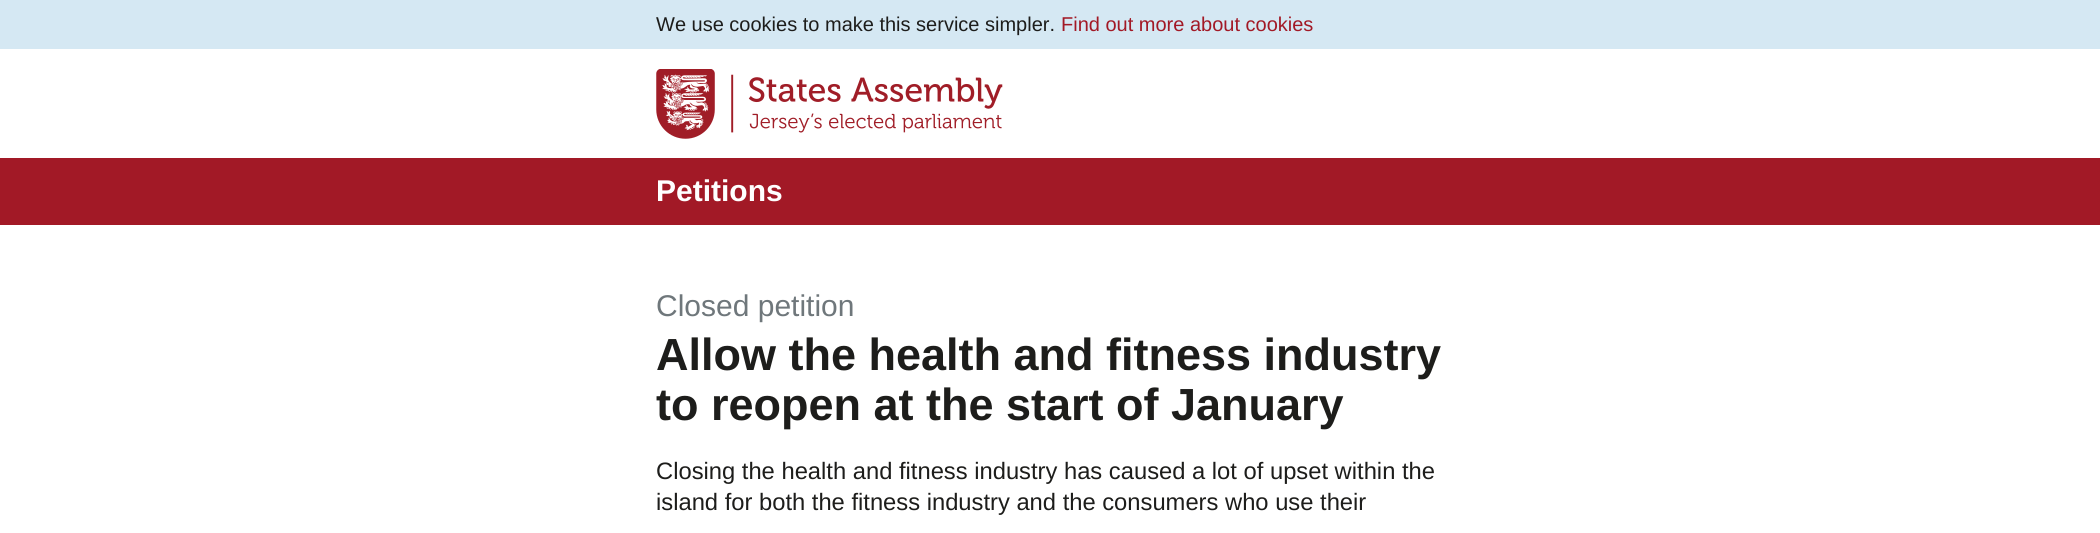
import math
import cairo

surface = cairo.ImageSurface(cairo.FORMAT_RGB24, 2100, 533)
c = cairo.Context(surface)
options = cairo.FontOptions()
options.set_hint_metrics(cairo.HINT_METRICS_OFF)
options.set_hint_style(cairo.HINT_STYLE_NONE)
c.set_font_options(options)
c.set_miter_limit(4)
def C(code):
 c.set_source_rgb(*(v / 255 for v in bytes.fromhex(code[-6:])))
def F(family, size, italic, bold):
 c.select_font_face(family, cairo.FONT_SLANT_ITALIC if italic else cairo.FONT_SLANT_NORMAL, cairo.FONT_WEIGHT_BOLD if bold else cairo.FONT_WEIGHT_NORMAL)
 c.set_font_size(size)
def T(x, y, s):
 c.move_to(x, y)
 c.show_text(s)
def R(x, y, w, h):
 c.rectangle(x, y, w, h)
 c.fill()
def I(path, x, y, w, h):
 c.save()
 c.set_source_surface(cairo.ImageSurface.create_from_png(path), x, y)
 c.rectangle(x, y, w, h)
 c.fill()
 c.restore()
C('ffffff')
c.paint()
C('d5e8f3')
R(0,0,2100,49)
F('Liberation Sans',20,0,0)
C('1d1d1b')
T(656,31,'We use cookies to make this service simpler.')
C('a21926')
T(1061,31,'Find out more about cookies')
R(0,158,2100,67)
I('1.png',656,69,347,70)
F('Liberation Sans',30,0,1)
C('ffffff')
T(656,201,'Petitions')
F('Liberation Sans',30,0,0)
C('6f777b')
T(656,316,'Closed petition')
F('Liberation Sans',45,0,1)
C('1d1d1b')
T(656,370,'Allow the health and fitness industry')
T(656,420,'to reopen at the start of January')
F('Liberation Sans',23.75,0,0)
T(656,479,'Closing the health and fitness industry has caused a lot of upset within the')
T(656,510,'island for both the fitness industry and the consumers who use their')
surface.write_to_png('o.png')
